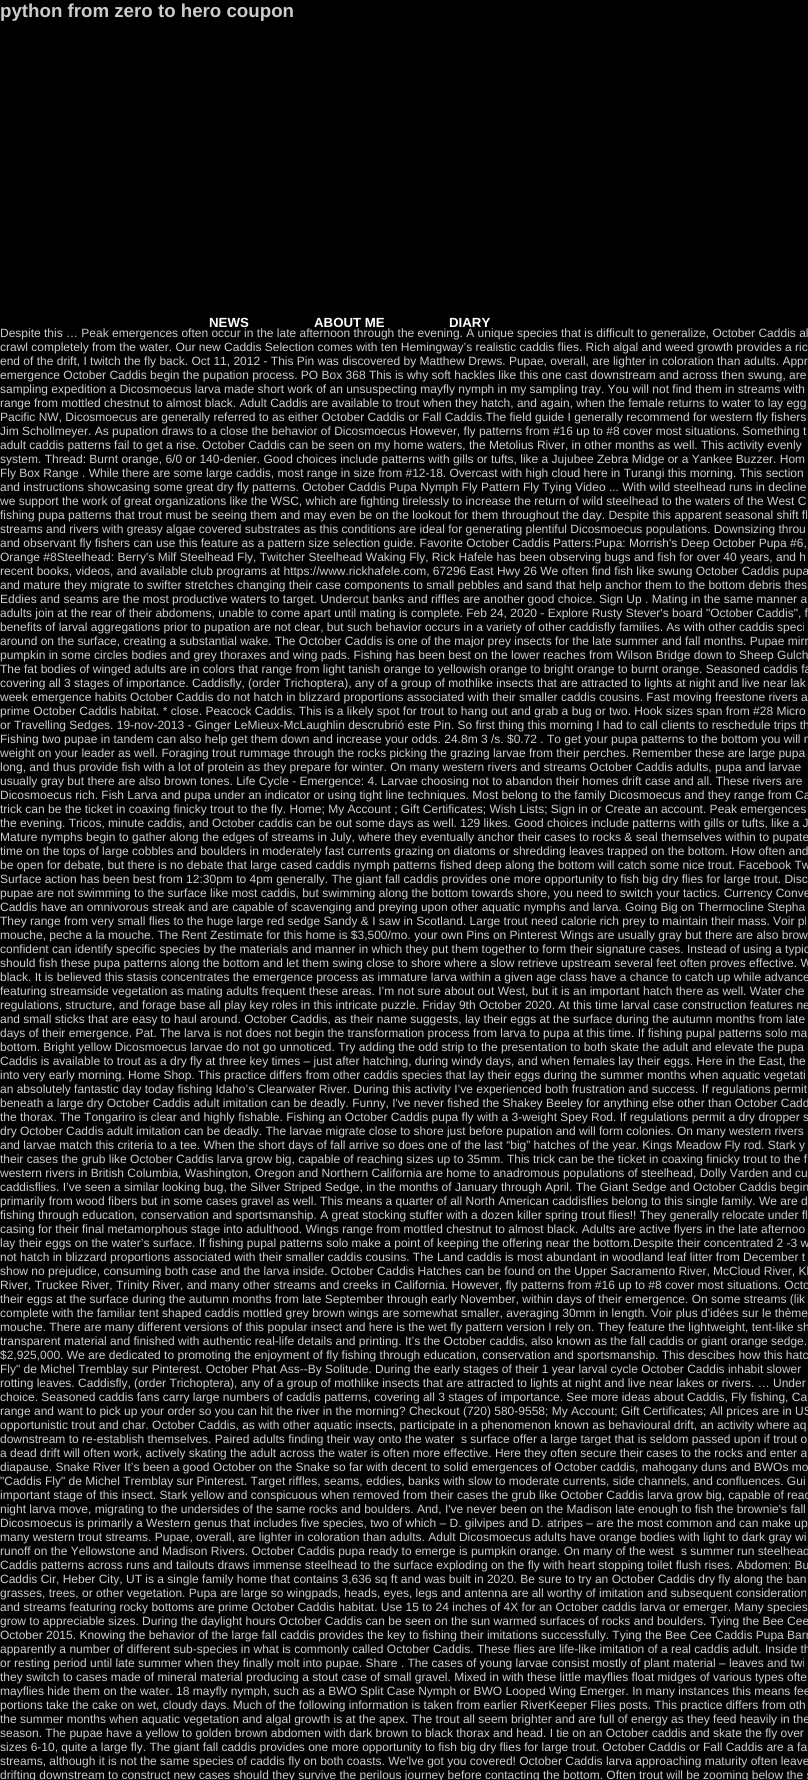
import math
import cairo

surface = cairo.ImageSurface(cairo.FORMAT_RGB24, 808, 1780)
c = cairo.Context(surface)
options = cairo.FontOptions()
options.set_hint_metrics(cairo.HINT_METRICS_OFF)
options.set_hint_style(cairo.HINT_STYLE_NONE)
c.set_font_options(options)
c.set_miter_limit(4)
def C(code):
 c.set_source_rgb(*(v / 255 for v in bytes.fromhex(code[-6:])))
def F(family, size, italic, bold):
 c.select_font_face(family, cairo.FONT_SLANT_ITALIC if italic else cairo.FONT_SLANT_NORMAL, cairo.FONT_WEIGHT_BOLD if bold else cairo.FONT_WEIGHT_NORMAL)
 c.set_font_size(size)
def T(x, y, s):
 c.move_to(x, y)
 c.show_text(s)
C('000000')
c.paint()
F('Liberation Sans',18.7,0,1)
C('cccccc')
T(0,17,'python from zero to hero coupon')
F('Liberation Sans',13.25,0,1)
C('ffffff')
T(209,327,'NEWS')
T(314,327,'ABOUT ME')
T(449,327,'DIARY')
F('Liberation Sans',12,0,0)
C('cccccc')
T(0,337,'Despite this … Peak emergences often occur in the late afternoon through the evening. A unique species that is difficult to generalize, October Caddis al')
T(0,351,'crawl completely from the water. Our new Caddis Selection comes with ten Hemingway’s realistic caddis flies. Rich algal and weed growth provides a ric')
T(0,365,'end of the drift, I twitch the fly back. Oct 11, 2012 - This Pin was discovered by Matthew Drews. Pupae, overall, are lighter in coloration than adults. Appr')
T(0,379,'emergence October Caddis begin the pupation process. PO Box 368 This is why soft hackles like this one cast downstream and across then swung, are')
T(0,393,'sampling expedition a Dicosmoecus larva made short work of an unsuspecting mayfly nymph in my sampling tray. You will not find them in streams with')
T(0,407,'range from mottled chestnut to almost black. Adult Caddis are available to trout when they hatch, and again, when the female returns to water to lay egg')
T(0,421,'Pacific NW, Dicosmoecus are generally referred to as either October Caddis or Fall Caddis.The field guide I generally recommend for western fly fishers')
T(0,435,'Jim Schollmeyer. As pupation draws to a close the behavior of Dicosmoecus However, fly patterns from #16 up to #8 cover most situations. Something t')
T(0,449,'adult caddis patterns fail to get a rise. October Caddis can be seen on my home waters, the Metolius River, in other months as well. This activity evenly')
T(0,463,'system. Thread: Burnt orange, 6/0 or 140-denier. Good choices include patterns with gills or tufts, like a Jujubee Zebra Midge or a Yankee Buzzer. Hom')
T(0,477,'Fly Box Range . While there are some large caddis, most range in size from #12-18. Overcast with high cloud here in Turangi this morning. This section')
T(0,491,'and instructions showcasing some great dry fly patterns. October Caddis Pupa Nymph Fly Pattern Fly Tying Video ... With wild steelhead runs in decline')
T(0,505,'we support the work of great organizations like the WSC, which are fighting tirelessly to increase the return of wild steelhead to the waters of the West C')
T(0,519,'fishing pupa patterns that trout must be seeing them and may even be on the lookout for them throughout the day. Despite this apparent seasonal shift fl')
T(0,533,'streams and rivers with greasy algae covered substrates as this conditions are ideal for generating plentiful Dicosmoecus populations. Downsizing throu')
T(0,547,'and observant fly fishers can use this feature as a pattern size selection guide. Favorite October Caddis Patters:Pupa: Morrish\'s Deep October Pupa #6,')
T(0,561,'Orange #8Steelhead: Berry\'s Milf Steelhead Fly, Twitcher Steelhead Waking Fly, Rick Hafele has been observing bugs and fish for over 40 years, and h')
T(0,575,'recent books, videos, and available club programs at https://www.rickhafele.com, 67296 East Hwy 26 We often find fish like swung October Caddis pupa')
T(0,589,'and mature they migrate to swifter stretches changing their case components to small pebbles and sand that help anchor them to the bottom debris thes')
T(0,603,'Eddies and seams are the most productive waters to target. Undercut banks and riffles are another good choice. Sign Up . Mating in the same manner a')
T(0,617,'adults join at the rear of their abdomens, unable to come apart until mating is complete. Feb 24, 2020 - Explore Rusty Stever\'s board "October Caddis", f')
T(0,631,'benefits of larval aggregations prior to pupation are not clear, but such behavior occurs in a variety of other caddisfly families. As with other caddis speci')
T(0,645,'around on the surface, creating a substantial wake. The October Caddis is one of the major prey insects for the late summer and fall months. Pupae mirr')
T(0,659,'pumpkin in some circles bodies and grey thoraxes and wing pads. Fishing has been best on the lower reaches from Wilson Bridge down to Sheep Gulch')
T(0,673,'The fat bodies of winged adults are in colors that range from light tanish orange to yellowish orange to bright orange to burnt orange. Seasoned caddis fa')
T(0,687,'covering all 3 stages of importance. Caddisfly, (order Trichoptera), any of a group of mothlike insects that are attracted to lights at night and live near lak')
T(0,701,'week emergence habits October Caddis do not hatch in blizzard proportions associated with their smaller caddis cousins. Fast moving freestone rivers a')
T(0,715,'prime October Caddis habitat. * close. Peacock Caddis. This is a likely spot for trout to hang out and grab a bug or two. Hook sizes span from #28 Micro')
T(0,729,'or Travelling Sedges. 19-nov-2013 - Ginger LeMieux-McLaughlin descrubrió este Pin. So first thing this morning I had to call clients to reschedule trips th')
T(0,743,'Fishing two pupae in tandem can also help get them down and increase your odds. 24.8m 3 /s. $0.72 . To get your pupa patterns to the bottom you will n')
T(0,757,'weight on your leader as well. Foraging trout rummage through the rocks picking the grazing larvae from their perches. Remember these are large pupa')
T(0,771,'long, and thus provide fish with a lot of protein as they prepare for winter. On many western rivers and streams October Caddis adults, pupa and larvae')
T(0,785,'usually gray but there are also brown tones. Life Cycle - Emergence: 4. Larvae choosing not to abandon their homes drift case and all. These rivers are')
T(0,799,'Dicosmoecus rich. Fish Larva and pupa under an indicator or using tight line techniques. Most belong to the family Dicosmoecus and they range from Ca')
T(0,813,'trick can be the ticket in coaxing finicky trout to the fly. Home; My Account ; Gift Certificates; Wish Lists; Sign in or Create an account. Peak emergences')
T(0,827,'the evening. Tricos, minute caddis, and October caddis can be out some days as well. 129 likes. Good choices include patterns with gills or tufts, like a J')
T(0,841,'Mature nymphs begin to gather along the edges of streams in July, where they eventually anchor their cases to rocks & seal themselves within to pupate')
T(0,855,'time on the tops of large cobbles and boulders in moderately fast currents grazing on diatoms or shredding leaves trapped on the bottom. How often and')
T(0,869,'be open for debate, but there is no debate that large cased caddis nymph patterns fished deep along the bottom will catch some nice trout. Facebook Tw')
T(0,883,'Surface action has been best from 12:30pm to 4pm generally. The giant fall caddis provides one more opportunity to fish big dry flies for large trout. Disc')
T(0,897,'pupae are not swimming to the surface like most caddis, but swimming along the bottom towards shore, you need to switch your tactics. Currency Conve')
T(0,911,'Caddis have an omnivorous streak and are capable of scavenging and preying upon other aquatic nymphs and larva. Going Big on Thermocline Stepha')
T(0,925,'They range from very small flies to the huge large red sedge Sandy & I saw in Scotland. Large trout need calorie rich prey to maintain their mass. Voir pl')
T(0,939,'mouche, peche a la mouche. The Rent Zestimate for this home is $3,500/mo. your own Pins on Pinterest Wings are usually gray but there are also brow')
T(0,953,'confident can identify specific species by the materials and manner in which they put them together to form their signature cases. Instead of using a typic')
T(0,967,'should fish these pupa patterns along the bottom and let them swing close to shore where a slow retrieve upstream several feet often proves effective. W')
T(0,981,'black. It is believed this stasis concentrates the emergence process as immature larva within a given age class have a chance to catch up while advance')
T(0,995,'featuring streamside vegetation as mating adults frequent these areas. I’m not sure about out West, but it is an important hatch there as well. Water che')
T(0,1009,'regulations, structure, and forage base all play key roles in this intricate puzzle. Friday 9th October 2020. At this time larval case construction features ne')
T(0,1023,'and small sticks that are easy to haul around. October Caddis, as their name suggests, lay their eggs at the surface during the autumn months from late')
T(0,1037,'days of their emergence. Pat. The larva is not does not begin the transformation process from larva to pupa at this time. If fishing pupal patterns solo ma')
T(0,1051,'bottom. Bright yellow Dicosmoecus larvae do not go unnoticed. Try adding the odd strip to the presentation to both skate the adult and elevate the pupa')
T(0,1065,'Caddis is available to trout as a dry fly at three key times – just after hatching, during windy days, and when females lay their eggs. Here in the East, the')
T(0,1079,'into very early morning. Home Shop. This practice differs from other caddis species that lay their eggs during the summer months when aquatic vegetati')
T(0,1093,'an absolutely fantastic day today fishing Idaho’s Clearwater River. During this activity I’ve experienced both frustration and success. If regulations permit')
T(0,1107,'beneath a large dry October Caddis adult imitation can be deadly. Funny, I\'ve never fished the Shakey Beeley for anything else other than October Cadd')
T(0,1121,'the thorax. The Tongariro is clear and highly fishable. Fishing an October Caddis pupa fly with a 3-weight Spey Rod. If regulations permit a dry dropper s')
T(0,1135,'dry October Caddis adult imitation can be deadly. The larvae migrate close to shore just before pupation and will form colonies. On many western rivers')
T(0,1149,'and larvae match this criteria to a tee. When the short days of fall arrive so does one of the last “big” hatches of the year. Kings Meadow Fly rod. Stark y')
T(0,1163,'their cases the grub like October Caddis larva grow big, capable of reaching sizes up to 35mm. This trick can be the ticket in coaxing finicky trout to the f')
T(0,1177,'western rivers in British Columbia, Washington, Oregon and Northern California are home to anadromous populations of steelhead, Dolly Varden and cu')
T(0,1191,'caddisflies. I’ve seen a similar looking bug, the Silver Striped Sedge, in the months of January through April. The Giant Sedge and October Caddis begin')
T(0,1205,'primarily from wood fibers but in some cases gravel as well. This means a quarter of all North American caddisflies belong to this single family. We are d')
T(0,1219,'fishing through education, conservation and sportsmanship. A great stocking stuffer with a dozen killer spring trout flies!! They generally relocate under fl')
T(0,1233,'casing for their final metamorphous stage into adulthood. Wings range from mottled chestnut to almost black. Adults are active flyers in the late afternoo')
T(0,1247,'lay their eggs on the water’s surface. If fishing pupal patterns solo make a point of keeping the offering near the bottom.Despite their concentrated 2 -3 w')
T(0,1261,'not hatch in blizzard proportions associated with their smaller caddis cousins. The Land caddis is most abundant in woodland leaf litter from December t')
T(0,1275,'show no prejudice, consuming both case and the larva inside. October Caddis Hatches can be found on the Upper Sacramento River, McCloud River, Kl')
T(0,1289,'River, Truckee River, Trinity River, and many other streams and creeks in California. However, fly patterns from #16 up to #8 cover most situations. Octo')
T(0,1303,'their eggs at the surface during the autumn months from late September through early November, within days of their emergence. On some streams (lik')
T(0,1317,'complete with the familiar tent shaped caddis mottled grey brown wings are somewhat smaller, averaging 30mm in length. Voir plus d\'idées sur le thème')
T(0,1331,'mouche. There are many different versions of this popular insect and here is the wet fly pattern version I rely on. They feature the lightweight, tent-like sh')
T(0,1345,'transparent material and finished with authentic real-life details and printing. It’s the October caddis, also known as the fall caddis or giant orange sedge.')
T(0,1359,'$2,925,000. We are dedicated to promoting the enjoyment of fly fishing through education, conservation and sportsmanship. This descibes how this hatc')
T(0,1373,'Fly" de Michel Tremblay sur Pinterest. October Phat Ass--By Solitude. During the early stages of their 1 year larval cycle October Caddis inhabit slower')
T(0,1387,'rotting leaves. Caddisfly, (order Trichoptera), any of a group of mothlike insects that are attracted to lights at night and live near lakes or rivers. … Under')
T(0,1401,'choice. Seasoned caddis fans carry large numbers of caddis patterns, covering all 3 stages of importance. See more ideas about Caddis, Fly fishing, Ca')
T(0,1415,'range and want to pick up your order so you can hit the river in the morning? Checkout (720) 580-9558; My Account; Gift Certificates; All prices are in US')
T(0,1429,'opportunistic trout and char. October Caddis, as with other aquatic insects, participate in a phenomenon known as behavioural drift, an activity where aq')
T(0,1443,'downstream to re-establish themselves. Paired adults finding their way onto the water')
T(461,1443,'s surface offer a large target that is seldom passed upon if trout o')
T(0,1457,'a dead drift will often work, actively skating the adult across the water is often more effective. Here they often secure their cases to the rocks and enter a')
T(0,1471,'diapause. Snake River It’s been a good October on the Snake so far with decent to solid emergences of October caddis, mahogany duns and BWOs mo')
T(0,1485,'"Caddis Fly" de Michel Tremblay sur Pinterest. Target riffles, seams, eddies, banks with slow to moderate currents, side channels, and confluences. Gui')
T(0,1499,'important stage of this insect. Stark yellow and conspicuous when removed from their cases the grub like October Caddis larva grow big, capable of reac')
T(0,1513,'night larva move, migrating to the undersides of the same rocks and boulders. And, I\'ve never been on the Madison late enough to fish the brownie\'s fall')
T(0,1527,'Dicosmoecus is primarily a Western genus that includes five species, two of which – D. gilvipes and D. atripes – are the most common and can make up')
T(0,1541,'many western trout streams. Pupae, overall, are lighter in coloration than adults. Adult Dicosmoecus adults have orange bodies with light to dark gray wi')
T(0,1555,'runoff on the Yellowstone and Madison Rivers. October Caddis pupa ready to emerge is pumpkin orange. On many of the west')
T(681,1555,'s summer run steelhead')
T(0,1569,'Caddis patterns across runs and tailouts draws immense steelhead to the surface exploding on the fly with heart stopping toilet flush rises. Abdomen: Bu')
T(0,1583,'Caddis Cir, Heber City, UT is a single family home that contains 3,636 sq ft and was built in 2020. Be sure to try an October Caddis dry fly along the ban')
T(0,1597,'grasses, trees, or other vegetation. Pupa are large so wingpads, heads, eyes, legs and antenna are all worthy of imitation and subsequent consideration')
T(0,1611,'and streams featuring rocky bottoms are prime October Caddis habitat. Use 15 to 24 inches of 4X for an October caddis larva or emerger. Many species')
T(0,1625,'grow to appreciable sizes. During the daylight hours October Caddis can be seen on the sun warmed surfaces of rocks and boulders. Tying the Bee Cee')
T(0,1639,'October 2015. Knowing the behavior of the large fall caddis provides the key to fishing their imitations successfully. Tying the Bee Cee Caddis Pupa Barr')
T(0,1653,'apparently a number of different sub-species in what is commonly called October Caddis. These flies are life-like imitation of a real caddis adult. Inside th')
T(0,1667,'or resting period until late summer when they finally molt into pupae. Share . The cases of young larvae consist mostly of plant material – leaves and twi')
T(0,1681,'they switch to cases made of mineral material producing a stout case of small gravel. Mixed in with these little mayflies float midges of various types ofte')
T(0,1695,'mayflies hide them on the water. 18 mayfly nymph, such as a BWO Split Case Nymph or BWO Looped Wing Emerger. In many instances this means fee')
T(0,1709,'portions take the cake on wet, cloudy days. Much of the following information is taken from earlier RiverKeeper Flies posts. This practice differs from oth')
T(0,1723,'the summer months when aquatic vegetation and algal growth is at the apex. The trout all seem brighter and are full of energy as they feed heavily in the')
T(0,1737,'season. The pupae have a yellow to golden brown abdomen with dark brown to black thorax and head. I tie on an October caddis and skate the fly over')
T(0,1751,'sizes 6-10, quite a large fly. The giant fall caddis provides one more opportunity to fish big dry flies for large trout. October Caddis or Fall Caddis are a fa')
T(0,1765,'streams, although it is not the same species of caddis fly on both coasts. We\'lve got you covered! October Caddis larva approaching maturity often leave')
T(0,1779,'drifting downstream to construct new cases should they survive the perilous journey before contacting the bottom. Often trout will be zooming below the s')
surface.write_to_png('o.png')
